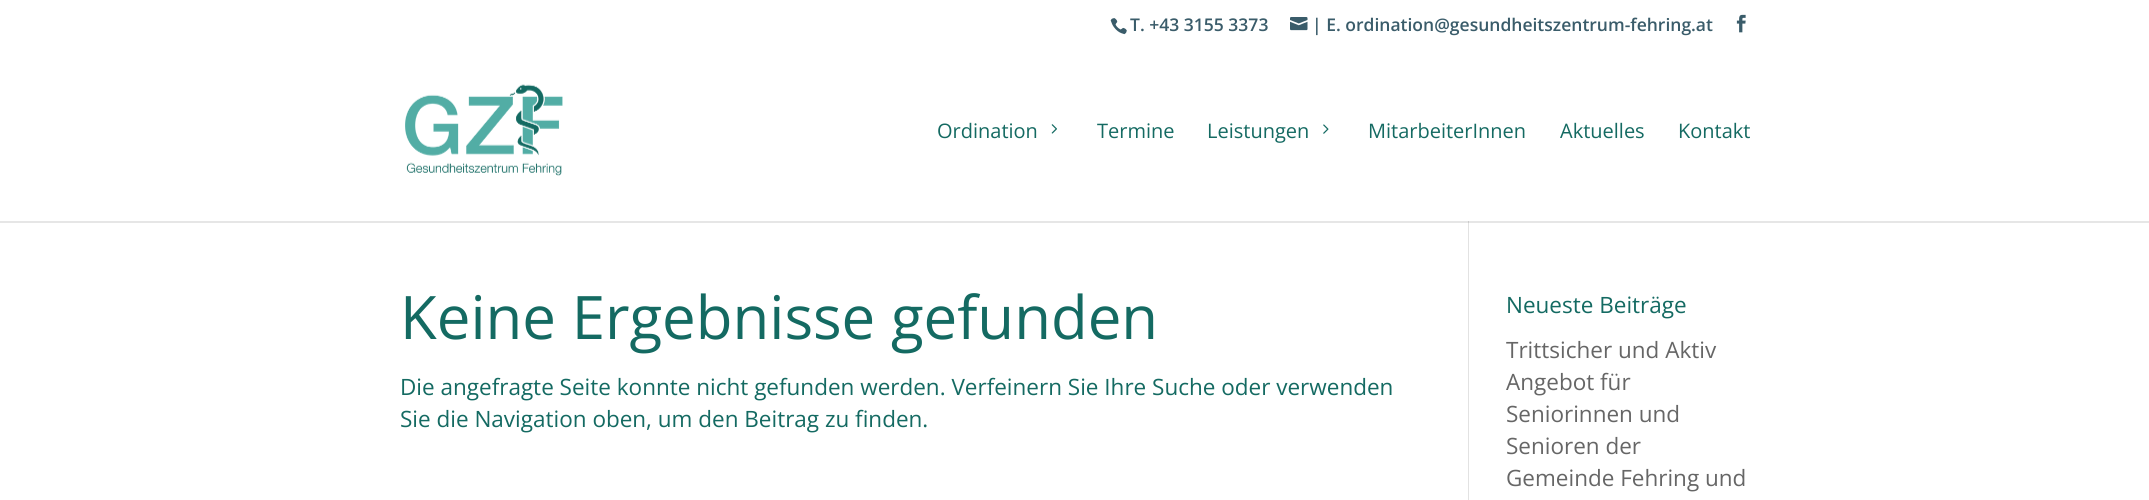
import math
import cairo

surface = cairo.ImageSurface(cairo.FORMAT_RGB24, 2149, 500)
c = cairo.Context(surface)
options = cairo.FontOptions()
options.set_hint_metrics(cairo.HINT_METRICS_OFF)
options.set_hint_style(cairo.HINT_STYLE_NONE)
c.set_font_options(options)
c.set_miter_limit(4)
def C(code):
 c.set_source_rgb(*(v / 255 for v in bytes.fromhex(code[-6:])))
def F(family, size, italic, bold):
 c.select_font_face(family, cairo.FONT_SLANT_ITALIC if italic else cairo.FONT_SLANT_NORMAL, cairo.FONT_WEIGHT_BOLD if bold else cairo.FONT_WEIGHT_NORMAL)
 c.set_font_size(size)
def T(x, y, s):
 c.move_to(x, y)
 c.show_text(s)
def R(x, y, w, h):
 c.rectangle(x, y, w, h)
 c.fill()
def I(path, x, y, w, h):
 c.save()
 c.set_source_surface(cairo.ImageSurface.create_from_png(path), x, y)
 c.rectangle(x, y, w, h)
 c.fill()
 c.restore()
C('ffffff')
c.paint()
C('e6e6e6')
R(0,221,2149,2)
I('1.png',1110,18,17,17)
F('Open Sans SemiBold',17.5,0,0)
C('3a5c6a')
T(1130,31,'T. +43 3155 3373')
I('2.png',1290,17,18,14)
T(1312,31,'| E. ordination@gesundheitszentrum-fehring.at')
I('3.png',1736,14,10,19)
I('4.png',405,84,158,92)
F('Open Sans',20,0,0)
C('146a62')
T(937,138,'Ordination')
I('5.png',1051,124,6,10)
T(1097,138,'Termine')
T(1207,138,'Leistungen')
I('6.png',1323,124,6,10)
T(1368,138,'MitarbeiterInnen')
T(1560,138,'Aktuelles')
T(1678,138,'Kontakt')
C('e2e2e2')
R(1468,223,1,277)
C('cbcbcb')
R(1468,221,1,2)
F('Open Sans',60,0,0)
C('146a62')
T(400,339,'Keine Ergebnisse gefunden')
F('Open Sans',22.5,0,0)
T(400,395,'Die angefragte Seite konnte nicht gefunden werden. Verfeinern Sie Ihre Suche oder verwenden')
T(400,427,'Sie die Navigation oben, um den Beitrag zu finden.')
T(1506,313,'Neueste Beiträge')
C('666666')
T(1506,358,'Trittsicher und Aktiv')
T(1506,390,'Angebot für')
T(1506,422,'Seniorinnen und')
T(1506,454,'Senioren der')
T(1506,486,'Gemeinde Fehring und')
surface.write_to_png('o.png')
